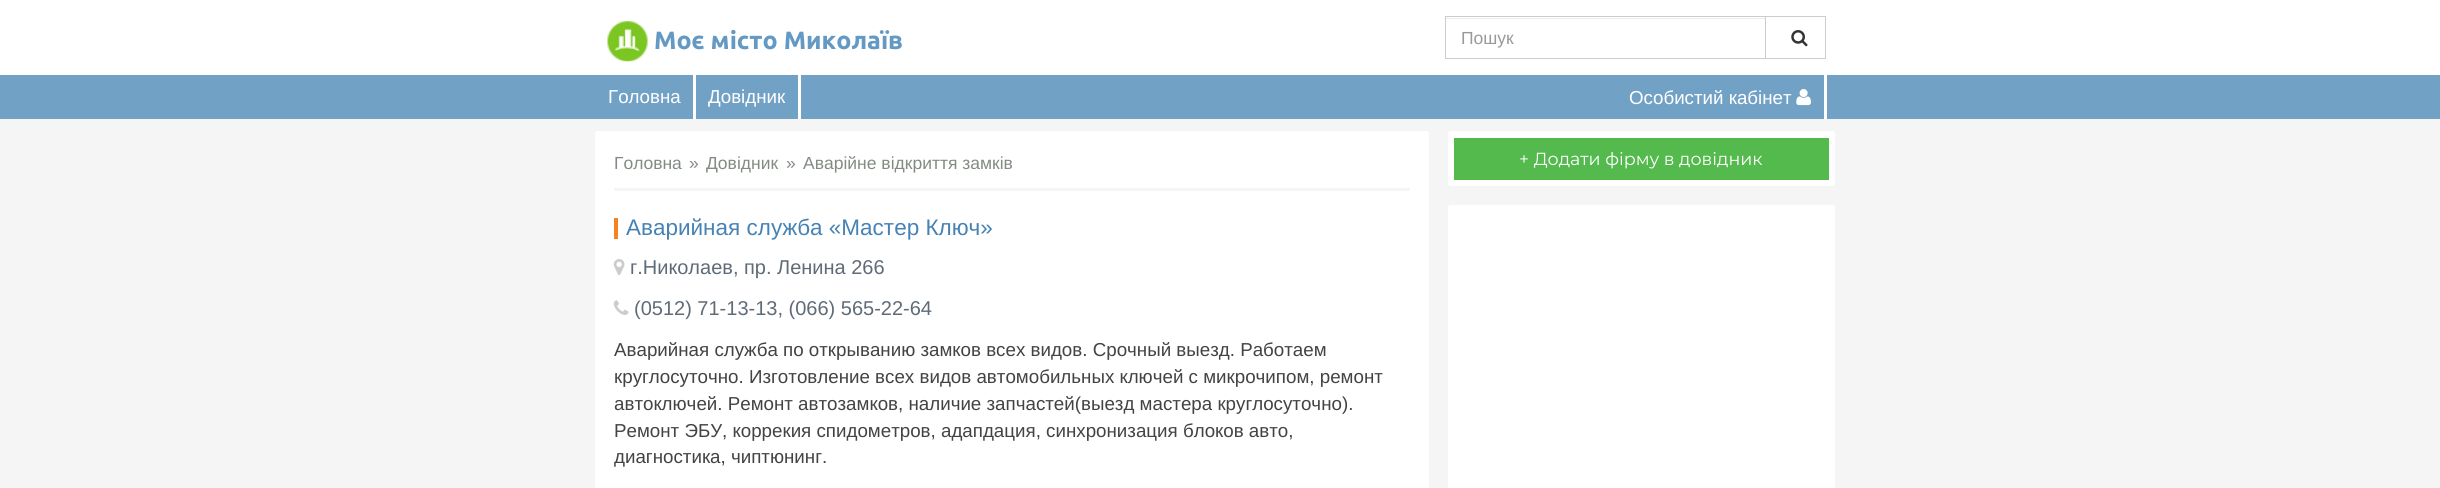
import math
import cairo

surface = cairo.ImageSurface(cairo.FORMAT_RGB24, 2440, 488)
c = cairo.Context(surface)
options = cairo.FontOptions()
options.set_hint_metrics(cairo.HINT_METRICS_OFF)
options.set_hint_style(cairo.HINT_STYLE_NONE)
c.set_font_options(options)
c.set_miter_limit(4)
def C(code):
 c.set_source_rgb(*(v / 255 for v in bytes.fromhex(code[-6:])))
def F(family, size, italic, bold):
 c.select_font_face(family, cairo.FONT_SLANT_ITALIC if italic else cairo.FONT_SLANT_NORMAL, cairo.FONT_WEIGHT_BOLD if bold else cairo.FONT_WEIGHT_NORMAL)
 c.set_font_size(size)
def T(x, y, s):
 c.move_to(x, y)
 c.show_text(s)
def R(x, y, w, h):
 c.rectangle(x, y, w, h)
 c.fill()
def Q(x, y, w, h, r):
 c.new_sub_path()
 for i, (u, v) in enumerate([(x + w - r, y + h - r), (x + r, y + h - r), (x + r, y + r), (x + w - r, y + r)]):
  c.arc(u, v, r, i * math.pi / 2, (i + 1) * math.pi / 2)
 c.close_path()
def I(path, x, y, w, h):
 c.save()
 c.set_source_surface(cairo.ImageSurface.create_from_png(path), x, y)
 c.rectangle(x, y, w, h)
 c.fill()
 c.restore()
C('f5f5f5')
c.paint()
C('ffffff')
R(0,0,2440,75)
I('1.png',607,21,41,41)
F('Ubuntu',25,0,1)
C('6399c3')
T(654,49,'Моє місто Миколаїв')
C('ececec')
R(1446,18,319,1)
c.rectangle(1765.5,16.5,60,42)
C('cccccc')
c.set_line_width(1)
c.stroke()
c.rectangle(1445.5,16.5,320,42)
c.stroke()
F('Liberation Sans',17.5,0,0)
C('999999')
T(1461,44,'Пошук')
I('2.png',1791,30,17,17)
C('72a1c6')
R(0,75,2440,44)
C('ffffff')
R(693,75,3,44)
F('Liberation Sans',18.75,0,0)
T(608,103,'Головна')
R(798,75,3,44)
T(708,103,'Довідник')
R(1824,75,3,44)
T(1629,104,'Особистий кабінет')
I('3.png',1796,89,15,17)
Q(595,131,834,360,2.5)
c.fill()
F('Liberation Sans',17.5,0,0)
C('838b83')
T(614,169,'Головна')
T(689,169,'»')
T(706,169,'Довідник')
T(786,169,'»')
T(803,169,'Аварійне відкриття замків')
C('f5f5f5')
R(614,188,796,3)
C('f78320')
R(614,218,4,21)
F('Liberation Sans',22.5,0,0)
C('4682b4')
T(626,235,'Аварийная служба «Мастер Ключ»')
I('4.png',613,259,12,16)
F('Liberation Sans',20,0,0)
C('5f6b77')
T(630,274,'г.Николаев, пр. Ленина 266')
I('5.png',613,300,16,15)
T(634,315,'(0512) 71-13-13, (066) 565-22-64')
F('Liberation Sans',18.75,0,0)
C('434343')
T(614,356,'Аварийная служба по открыванию замков всех видов. Срочный выезд. Работаем')
T(614,383,'круглосуточно. Изготовление всех видов автомобильных ключей с микрочипом, ремонт')
T(614,410,'автоключей. Ремонт автозамков, наличие запчастей(выезд мастера круглосуточно).')
T(614,437,'Ремонт ЭБУ, коррекия спидометров, адапдация, синхронизация блоков авто,')
T(614,463,'диагностика, чиптюнинг.')
C('ffffff')
Q(1448,131,387,55,2.5)
c.fill()
C('54ba4e')
R(1454,138,375,42)
F('Montserrat',17.5,0,0)
C('ffffff')
T(1519,165,'+ Додати фірму в довідник')
Q(1448,205,387,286,2.5)
c.fill()
surface.write_to_png('o.png')
